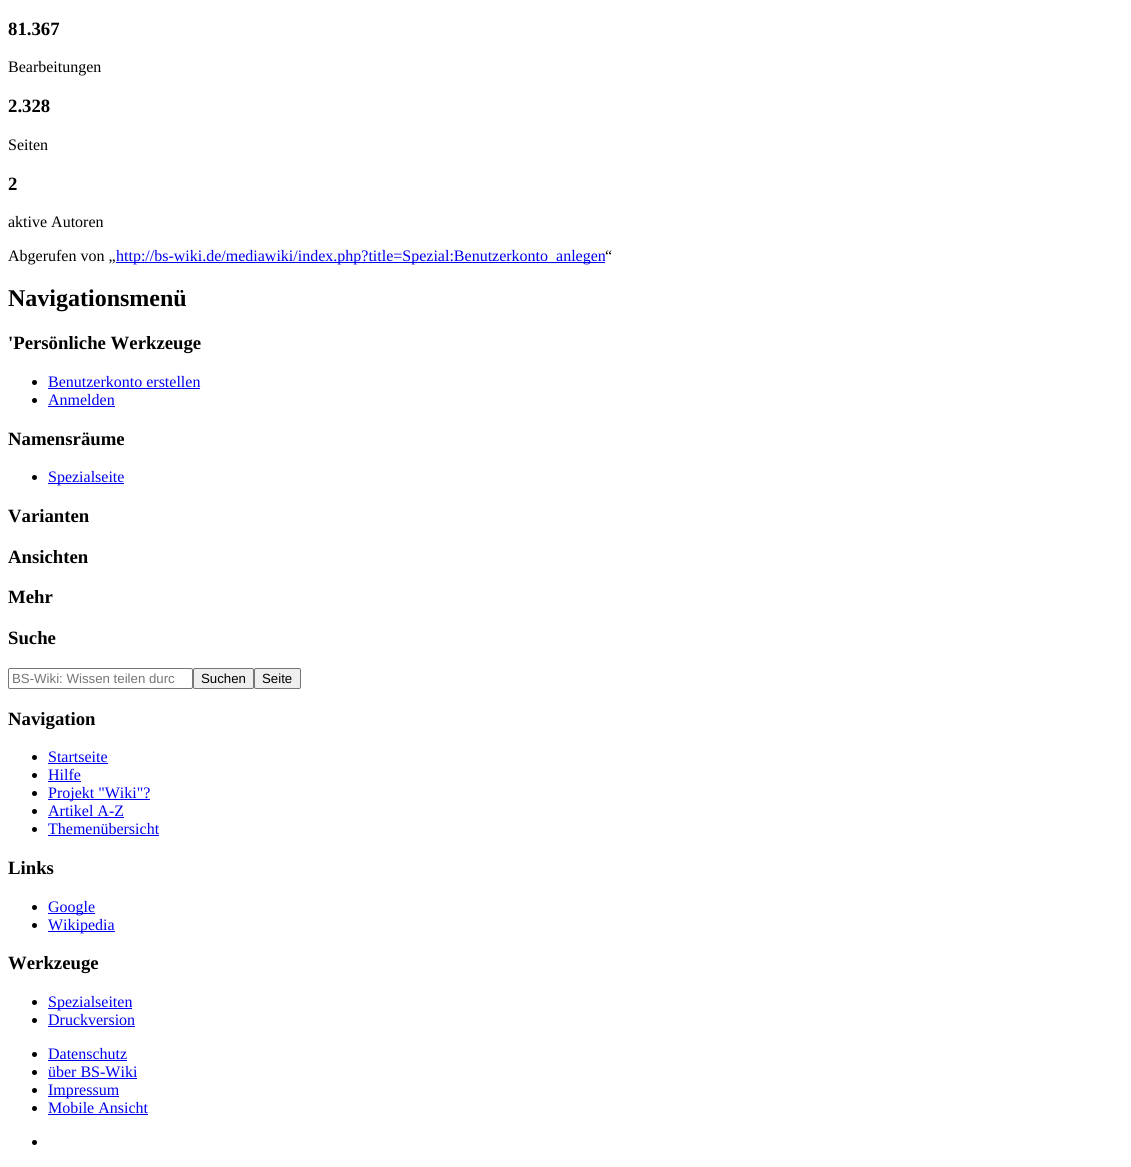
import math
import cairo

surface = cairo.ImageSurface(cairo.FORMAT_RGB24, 1131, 1167)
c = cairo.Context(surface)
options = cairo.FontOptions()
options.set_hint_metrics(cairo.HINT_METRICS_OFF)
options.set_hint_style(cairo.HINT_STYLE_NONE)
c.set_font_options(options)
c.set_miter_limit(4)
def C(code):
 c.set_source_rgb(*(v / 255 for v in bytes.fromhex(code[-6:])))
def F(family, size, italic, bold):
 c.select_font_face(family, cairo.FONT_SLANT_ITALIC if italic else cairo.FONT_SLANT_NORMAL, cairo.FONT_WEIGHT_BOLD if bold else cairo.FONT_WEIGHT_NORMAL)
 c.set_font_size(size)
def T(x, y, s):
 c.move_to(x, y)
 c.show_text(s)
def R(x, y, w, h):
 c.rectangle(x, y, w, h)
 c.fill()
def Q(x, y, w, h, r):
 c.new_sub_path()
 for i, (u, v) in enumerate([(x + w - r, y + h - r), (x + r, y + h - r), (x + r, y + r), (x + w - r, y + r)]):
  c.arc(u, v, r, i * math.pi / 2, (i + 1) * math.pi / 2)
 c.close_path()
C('ffffff')
c.paint()
F('Liberation Serif',18.75,0,1)
C('000000')
T(8,35,'81.367')
F('Liberation Serif',16,0,0)
T(8,72,'Bearbeitungen')
F('Liberation Serif',18.75,0,1)
T(8,112,'2.328')
F('Liberation Serif',16,0,0)
T(8,150,'Seiten')
F('Liberation Serif',18.75,0,1)
T(8,190,'2')
F('Liberation Serif',16,0,0)
T(8,227,'aktive Autoren')
T(8,261,'Abgerufen von „')
C('0000ee')
R(116,262,489,1)
T(116,261,'http://bs-wiki.de/mediawiki/index.php?title=Spezial:Benutzerkonto_anlegen')
C('000000')
T(605,261,'“')
F('Liberation Serif',24,0,1)
T(8,306,'Navigationsmenü')
F('Liberation Serif',18.75,0,1)
T(8,349,'\'Persönliche Werkzeuge')
c.new_path()
c.arc(34.5,382.5,2.5,0,2 * math.pi)
c.fill()
F('Liberation Serif',16,0,0)
C('0000ee')
T(48,387,'Benutzerkonto erstellen')
R(48,388,152,1)
C('000000')
c.new_path()
c.arc(34.5,400.5,2.5,0,2 * math.pi)
c.fill()
C('0000ee')
T(48,405,'Anmelden')
R(48,406,67,1)
F('Liberation Serif',18.75,0,1)
C('000000')
T(8,445,'Namensräume')
c.new_path()
c.arc(34.5,477.5,2.5,0,2 * math.pi)
c.fill()
C('0000ee')
R(48,483,76,1)
F('Liberation Serif',16,0,0)
T(48,482,'Spezialseite')
F('Liberation Serif',18.75,0,1)
C('000000')
T(8,522,'Varianten')
T(8,563,'Ansichten')
T(8,603,'Mehr')
T(8,644,'Suche')
Q(8.5,668.5,184,20,1.5)
C('767676')
c.set_line_width(1)
c.stroke()
F('Liberation Sans',13.25,0,0)
C('757575')
T(12,683,'BS-Wiki: Wissen teilen durc')
C('efefef')
Q(193.5,668.5,60,20,1.5)
c.fill_preserve()
C('767676')
c.stroke()
C('000000')
T(201,683,'Suchen')
C('efefef')
Q(254.5,668.5,46,20,1.5)
c.fill_preserve()
C('767676')
c.stroke()
C('000000')
T(262,683,'Seite')
F('Liberation Serif',18.75,0,1)
T(8,725,'Navigation')
c.new_path()
c.arc(34.5,757.5,2.5,0,2 * math.pi)
c.fill()
F('Liberation Serif',16,0,0)
C('0000ee')
T(48,762,'Startseite')
R(48,763,60,1)
C('000000')
c.new_path()
c.arc(34.5,775.5,2.5,0,2 * math.pi)
c.fill()
C('0000ee')
T(48,780,'Hilfe')
R(48,781,33,1)
C('000000')
c.new_path()
c.arc(34.5,793.5,2.5,0,2 * math.pi)
c.fill()
C('0000ee')
R(48,799,102,1)
T(48,798,'Projekt "Wiki"?')
C('000000')
c.new_path()
c.arc(34.5,811.5,2.5,0,2 * math.pi)
c.fill()
C('0000ee')
T(48,816,'Artikel A-Z')
R(48,817,76,1)
C('000000')
c.new_path()
c.arc(34.5,829.5,2.5,0,2 * math.pi)
c.fill()
C('0000ee')
T(48,834,'Themenübersicht')
R(48,835,111,1)
F('Liberation Serif',18.75,0,1)
C('000000')
T(8,874,'Links')
c.new_path()
c.arc(34.5,907.5,2.5,0,2 * math.pi)
c.fill()
C('0000ee')
R(48,913,47,1)
F('Liberation Serif',16,0,0)
T(48,912,'Google')
C('000000')
c.new_path()
c.arc(34.5,925.5,2.5,0,2 * math.pi)
c.fill()
C('0000ee')
R(48,931,67,1)
T(48,930,'Wikipedia')
F('Liberation Serif',18.75,0,1)
C('000000')
T(8,969,'Werkzeuge')
c.new_path()
c.arc(34.5,1002.5,2.5,0,2 * math.pi)
c.fill()
C('0000ee')
R(48,1008,84,1)
F('Liberation Serif',16,0,0)
T(48,1007,'Spezialseiten')
C('000000')
c.new_path()
c.arc(34.5,1020.5,2.5,0,2 * math.pi)
c.fill()
C('0000ee')
T(48,1025,'Druckversion')
R(48,1026,87,1)
C('000000')
c.new_path()
c.arc(34.5,1054.5,2.5,0,2 * math.pi)
c.fill()
C('0000ee')
T(48,1059,'Datenschutz')
R(48,1060,79,1)
C('000000')
c.new_path()
c.arc(34.5,1072.5,2.5,0,2 * math.pi)
c.fill()
C('0000ee')
T(48,1077,'über BS-Wiki')
R(48,1078,89,1)
C('000000')
c.new_path()
c.arc(34.5,1090.5,2.5,0,2 * math.pi)
c.fill()
C('0000ee')
R(48,1096,71,1)
T(48,1095,'Impressum')
C('000000')
c.new_path()
c.arc(34.5,1108.5,2.5,0,2 * math.pi)
c.fill()
C('0000ee')
T(48,1113,'Mobile Ansicht')
R(48,1114,100,1)
C('000000')
c.new_path()
c.arc(34.5,1142.5,2.5,0,2 * math.pi)
c.fill()
surface.write_to_png('o.png')
